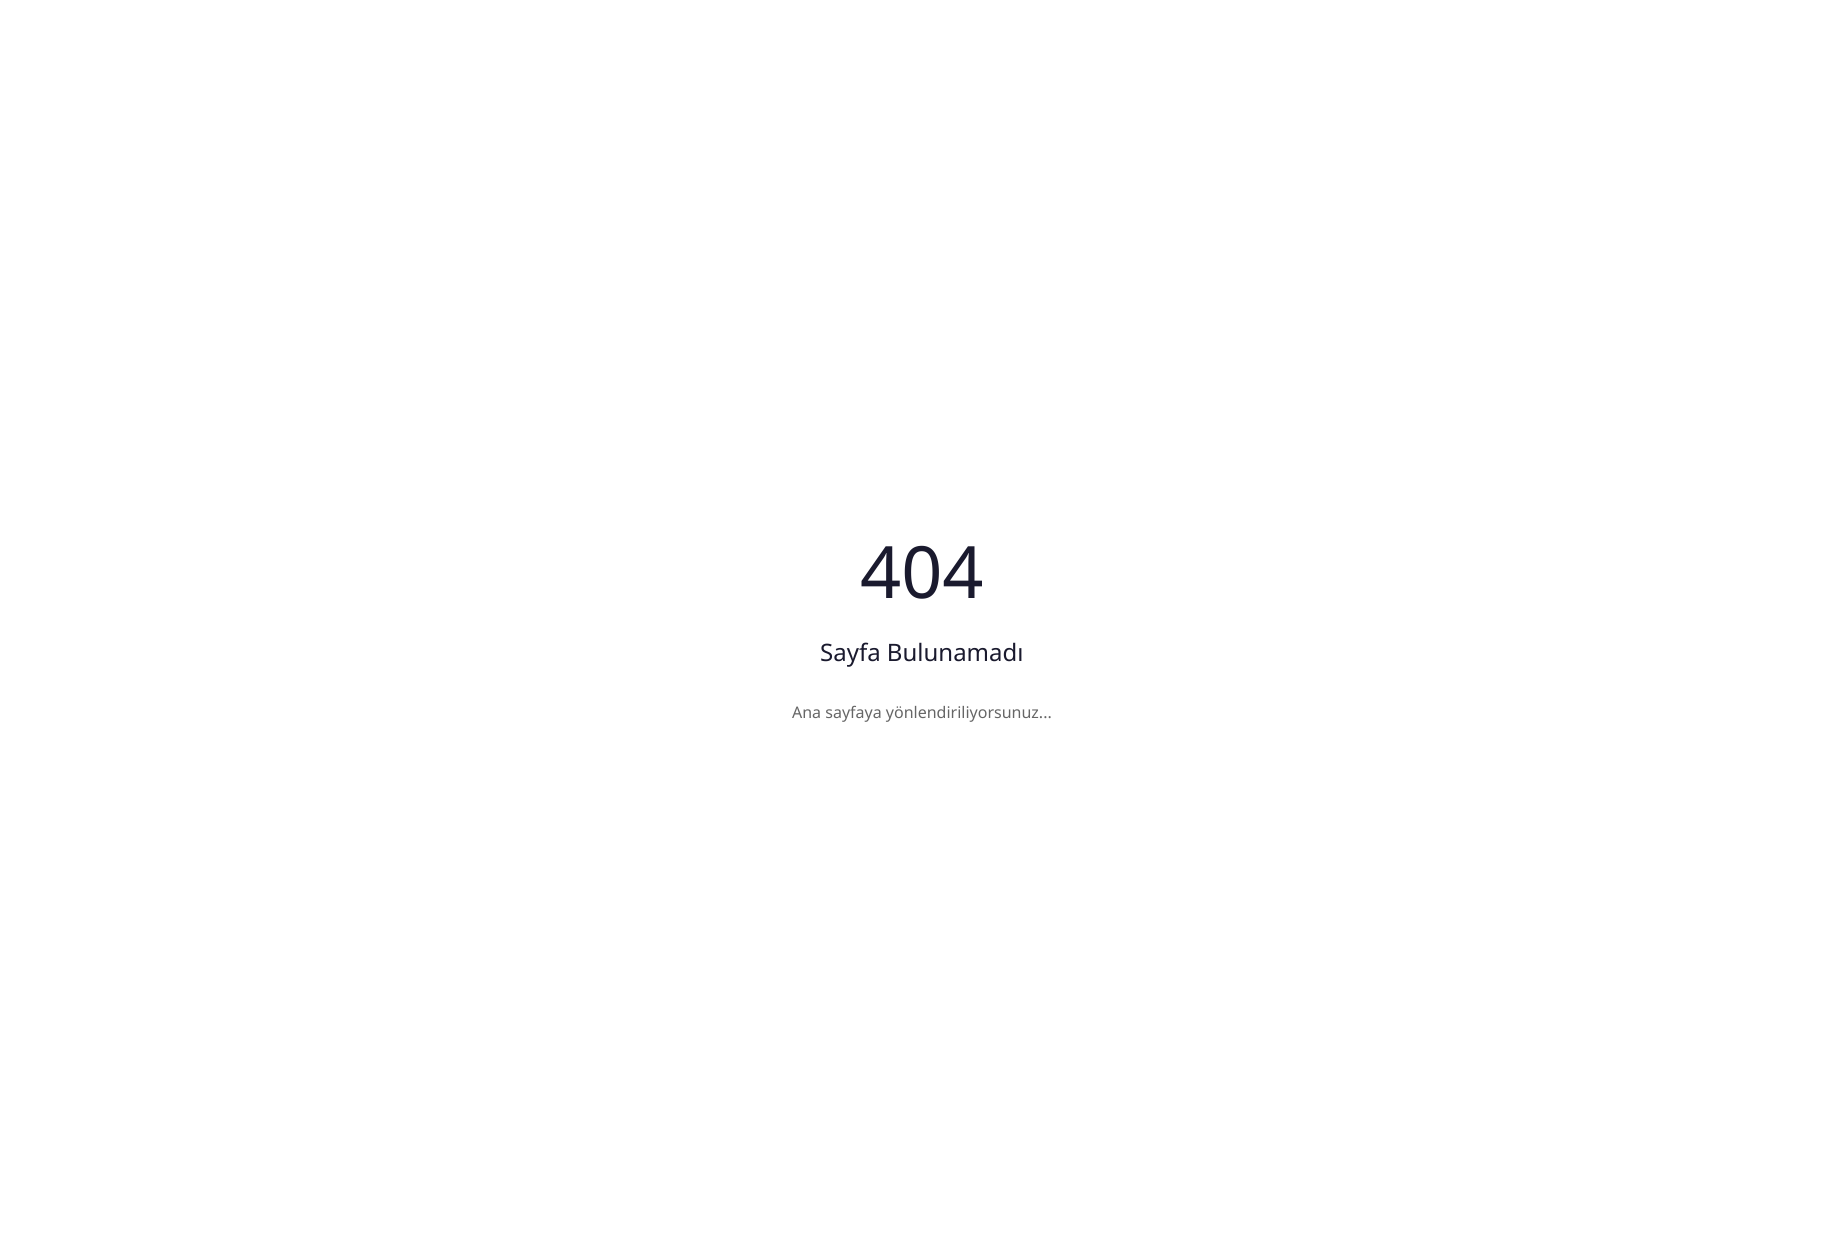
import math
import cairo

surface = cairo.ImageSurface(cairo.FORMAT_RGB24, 1843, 1260)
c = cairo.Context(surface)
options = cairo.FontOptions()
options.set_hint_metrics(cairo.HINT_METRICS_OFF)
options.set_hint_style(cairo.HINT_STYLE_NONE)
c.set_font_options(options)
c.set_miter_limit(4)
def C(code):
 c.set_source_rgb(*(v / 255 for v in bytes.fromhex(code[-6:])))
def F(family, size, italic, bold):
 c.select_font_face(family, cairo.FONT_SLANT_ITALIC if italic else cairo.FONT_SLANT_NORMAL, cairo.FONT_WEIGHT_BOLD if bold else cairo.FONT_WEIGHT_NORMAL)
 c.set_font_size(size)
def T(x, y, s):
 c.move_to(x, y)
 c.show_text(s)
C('ffffff')
c.paint()
F('Noto Sans',72,0,0)
C('1a1a2e')
T(860,598,'404')
F('Noto Sans',24,0,0)
T(820,661,'Sayfa Bulunamadı')
F('Noto Sans',16,0,0)
C('666666')
T(792,718,'Ana sayfaya yönlendiriliyorsunuz...')
surface.write_to_png('o.png')
